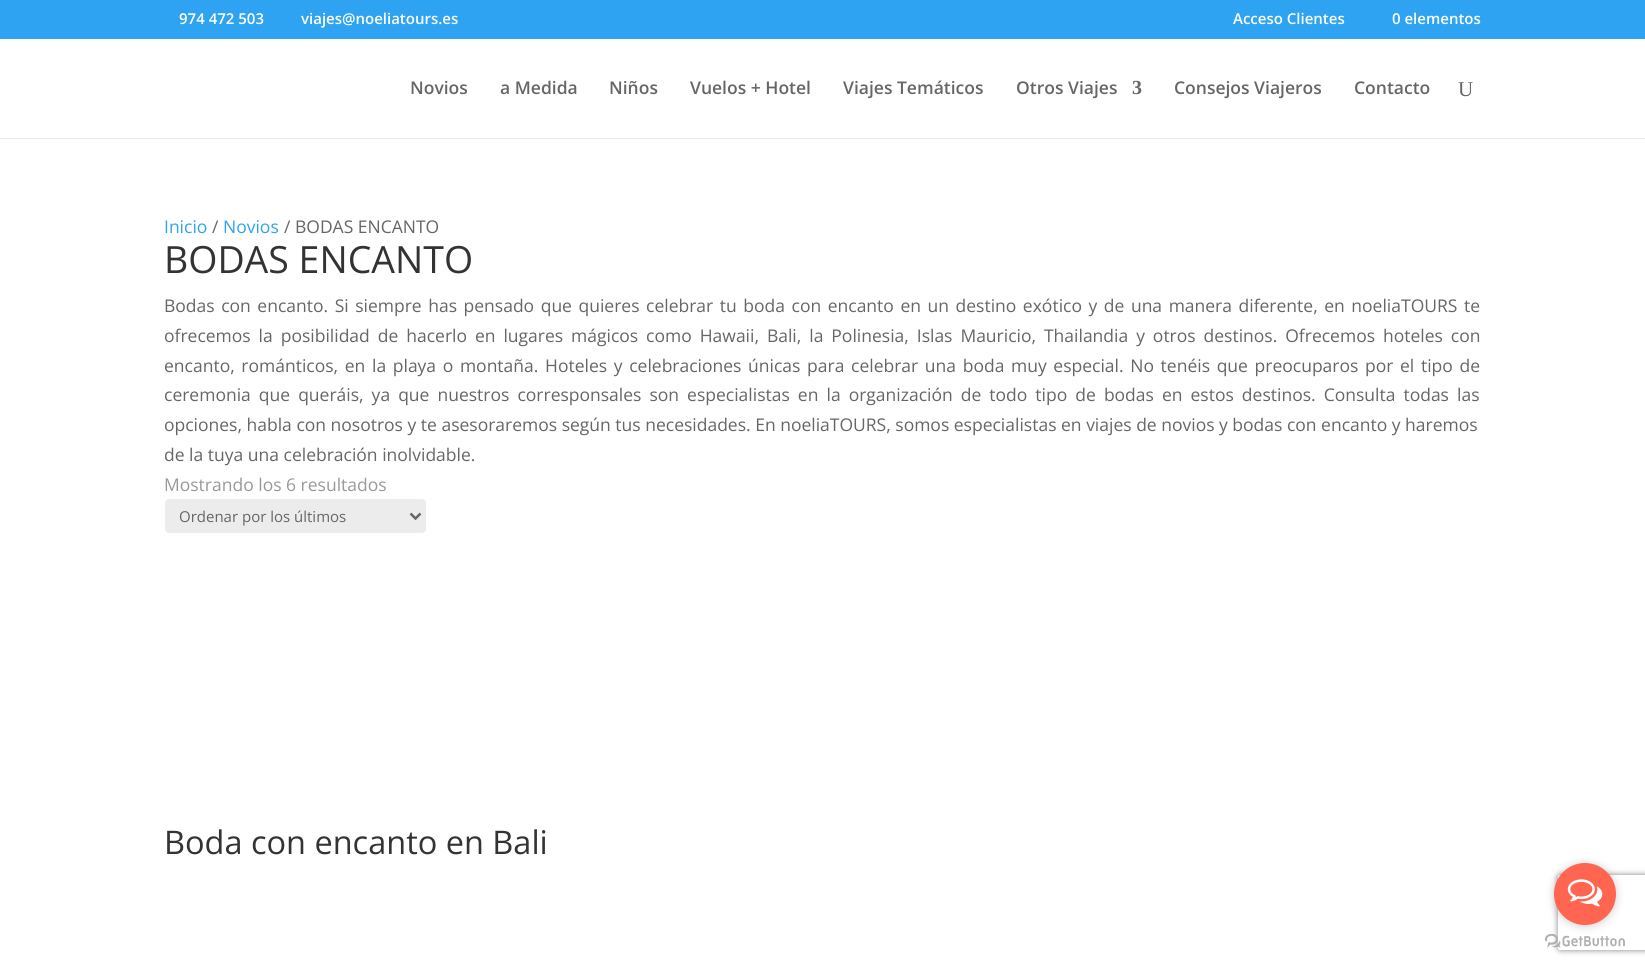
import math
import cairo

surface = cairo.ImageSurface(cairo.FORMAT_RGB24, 1645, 967)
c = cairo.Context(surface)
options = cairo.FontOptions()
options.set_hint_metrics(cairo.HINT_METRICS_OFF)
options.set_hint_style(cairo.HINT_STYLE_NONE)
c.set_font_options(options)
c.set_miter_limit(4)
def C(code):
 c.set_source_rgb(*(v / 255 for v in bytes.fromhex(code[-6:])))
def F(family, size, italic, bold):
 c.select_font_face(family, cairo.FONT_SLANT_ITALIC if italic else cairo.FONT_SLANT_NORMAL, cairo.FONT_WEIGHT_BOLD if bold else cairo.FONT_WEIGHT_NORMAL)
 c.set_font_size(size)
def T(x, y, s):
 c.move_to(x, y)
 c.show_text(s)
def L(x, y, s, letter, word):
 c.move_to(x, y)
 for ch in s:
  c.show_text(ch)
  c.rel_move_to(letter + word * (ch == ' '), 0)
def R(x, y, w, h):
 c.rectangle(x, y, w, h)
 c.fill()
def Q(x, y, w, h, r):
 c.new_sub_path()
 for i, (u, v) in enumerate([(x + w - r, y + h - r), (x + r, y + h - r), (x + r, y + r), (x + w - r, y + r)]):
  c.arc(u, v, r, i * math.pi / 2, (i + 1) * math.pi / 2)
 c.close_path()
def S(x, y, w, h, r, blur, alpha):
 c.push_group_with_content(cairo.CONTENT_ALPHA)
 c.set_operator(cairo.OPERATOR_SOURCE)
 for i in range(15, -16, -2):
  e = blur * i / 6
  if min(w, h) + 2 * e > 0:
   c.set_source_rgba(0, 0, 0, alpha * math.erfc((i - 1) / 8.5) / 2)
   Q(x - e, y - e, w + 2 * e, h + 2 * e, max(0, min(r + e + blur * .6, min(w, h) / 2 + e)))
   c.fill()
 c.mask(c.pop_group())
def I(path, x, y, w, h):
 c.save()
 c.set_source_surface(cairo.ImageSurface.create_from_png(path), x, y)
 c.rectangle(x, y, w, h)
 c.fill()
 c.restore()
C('ffffff')
c.paint()
C('2ea3f2')
R(0,0,1645,39)
F('Open Sans SemiBold',15,0,0)
C('ffffff')
T(179,24,'974 472 503')
T(301,24,'viajes@noeliatours.es')
T(1233,24,'Acceso Clientes')
T(1392,24,'0 elementos')
C('e6e6e6')
R(0,138,1645,1)
F('Open Sans SemiBold',17.5,0,0)
C('666666')
T(410,94,'Novios')
T(500,94,'a Medida')
T(609,94,'Niños')
T(690,94,'Vuelos + Hotel')
T(843,94,'Viajes Temáticos')
T(1016,94,'Otros Viajes')
F('Liberation Serif',20,0,1)
T(1132,94,'3')
F('Open Sans SemiBold',17.5,0,0)
T(1174,94,'Consejos Viajeros')
T(1354,94,'Contacto')
F('Liberation Serif',21,0,0)
T(1458,96,'U')
F('Open Sans',17.5,0,0)
C('2ea3f2')
T(164,233,'Inicio')
C('666666')
T(212,233,'/')
C('2ea3f2')
T(223,233,'Novios')
C('666666')
T(284,233,'/ BODAS ENCANTO')
F('Open Sans',37.5,0,0)
C('333333')
T(164,273,'BODAS ENCANTO')
F('Open Sans',17.5,0,0)
C('666666')
L(164,312,'Bodas con encanto. Si siempre has pensado que quieres celebrar tu boda con encanto en un destino exótico y de una manera diferente, en noeliaTOURS te',0,2)
L(164,342,'ofrecemos la posibilidad de hacerlo en lugares mágicos como Hawaii, Bali, la Polinesia, Islas Mauricio, Thailandia y otros destinos. Ofrecemos hoteles con',0,3.4)
L(164,372,'encanto, románticos, en la playa o montaña. Hoteles y celebraciones únicas para celebrar una boda muy especial. No tenéis que preocuparos por el tipo de',0,2.1)
L(164,401,'ceremonia que queráis, ya que nuestros corresponsales son especialistas en la organización de todo tipo de bodas en estos destinos. Consulta todas las',0,3.5)
T(164,431,'opciones, habla con nosotros y te asesoraremos según tus necesidades. En noeliaTOURS, somos especialistas en viajes de novios y bodas con encanto y haremos')
T(164,461,'de la tuya una celebración inolvidable.')
C('999999')
T(164,491,'Mostrando los 6 resultados')
C('ececec')
Q(165,499,261,34,4)
c.fill()
c.new_path()
c.move_to(410.5,513.5)
c.line_to(415.5,518.5)
c.line_to(420.5,513.5)
C('666666')
c.set_line_width(2.5)
c.stroke()
F('Open Sans',15,0,0)
T(179,522,'Ordenar por los últimos')
F('Open Sans',32.5,0,0)
C('333333')
T(164,854,'Boda con encanto en Bali')
c.save()
c.set_fill_rule(cairo.FILL_RULE_EVEN_ODD)
c.new_path()
c.move_to(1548,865)
c.line_to(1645,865)
c.line_to(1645,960)
c.line_to(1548,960)
c.close_path()
c.move_to(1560.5,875)
c.line_to(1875.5,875)
c.curve_to(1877,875,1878,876,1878,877.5)
c.line_to(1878,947.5)
c.curve_to(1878,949,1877,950,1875.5,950)
c.line_to(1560.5,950)
c.curve_to(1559,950,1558,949,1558,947.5)
c.line_to(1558,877.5)
c.curve_to(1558,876,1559,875,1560.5,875)
c.close_path()
c.clip()
C('808080')
S(1558,875,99,75,2.5,3,1)
c.restore()
I('2.png',1545,934,80,14)
C('888888')
S(1554,864,62,62,31,4.5,.4)
C('ff6550')
c.arc(1585,894,31,0,2 * math.pi)
c.fill()
I('1.png',1567,879,36,28)
surface.write_to_png('o.png')
